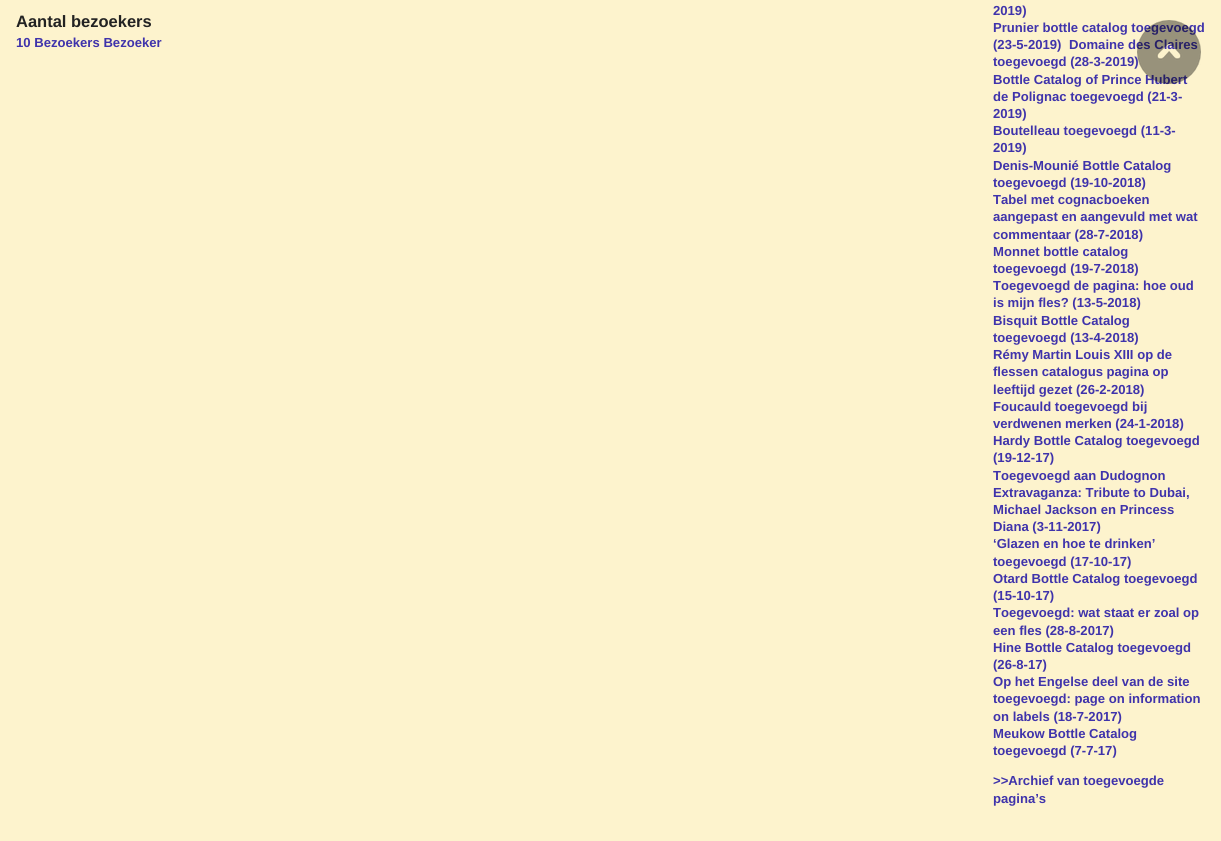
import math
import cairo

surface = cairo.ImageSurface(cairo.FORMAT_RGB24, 1221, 841)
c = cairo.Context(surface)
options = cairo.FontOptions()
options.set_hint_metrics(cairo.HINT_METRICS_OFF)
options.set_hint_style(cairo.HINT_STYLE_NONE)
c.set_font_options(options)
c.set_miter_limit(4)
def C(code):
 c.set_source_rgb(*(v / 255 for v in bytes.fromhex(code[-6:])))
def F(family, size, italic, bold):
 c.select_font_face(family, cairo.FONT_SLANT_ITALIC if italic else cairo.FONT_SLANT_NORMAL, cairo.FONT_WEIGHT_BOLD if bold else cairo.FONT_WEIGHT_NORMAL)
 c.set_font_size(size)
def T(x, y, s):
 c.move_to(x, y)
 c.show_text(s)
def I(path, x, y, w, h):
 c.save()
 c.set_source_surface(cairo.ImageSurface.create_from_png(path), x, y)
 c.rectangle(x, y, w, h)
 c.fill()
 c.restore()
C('fdf3cd')
c.paint()
F('Liberation Sans',16.5,0,1)
C('222222')
T(16,27,'Aantal bezoekers')
F('Liberation Sans',13.1,0,1)
C('3f33ab')
T(16,47,'10 Bezoekers Bezoeker')
T(993,15,'2019)')
T(993,32,'Prunier bottle catalog toegevoegd')
T(993,49,'(23-5-2019)')
T(1069,49,'Domaine des Claires')
T(993,66,'toegevoegd (28-3-2019)')
T(993,84,'Bottle Catalog of Prince Hubert')
T(993,101,'de Polignac toegevoegd (21-3-')
T(993,118,'2019)')
T(993,135,'Boutelleau toegevoegd (11-3-')
T(993,152,'2019)')
T(993,170,'Denis-Mounié Bottle Catalog')
T(993,187,'toegevoegd (19-10-2018)')
T(993,204,'Tabel met cognacboeken')
T(993,221,'aangepast en aangevuld met wat')
T(993,239,'commentaar (28-7-2018)')
T(993,256,'Monnet bottle catalog')
T(993,273,'toegevoegd (19-7-2018)')
T(993,290,'Toegevoegd de pagina: hoe oud')
T(993,307,'is mijn fles? (13-5-2018)')
T(993,325,'Bisquit Bottle Catalog')
T(993,342,'toegevoegd (13-4-2018)')
T(993,359,'Rémy Martin Louis XIII op de')
T(993,376,'flessen catalogus pagina op')
T(993,394,'leeftijd gezet (26-2-2018)')
T(993,411,'Foucauld toegevoegd bij')
T(993,428,'verdwenen merken (24-1-2018)')
T(993,445,'Hardy Bottle Catalog toegevoegd')
T(993,462,'(19-12-17)')
T(993,480,'Toegevoegd aan Dudognon')
T(993,497,'Extravaganza: Tribute to Dubai,')
T(993,514,'Michael Jackson en Princess')
T(993,531,'Diana (3-11-2017)')
T(993,548,'‘Glazen en hoe te drinken’')
T(993,566,'toegevoegd (17-10-17)')
T(993,583,'Otard Bottle Catalog toegevoegd')
T(993,600,'(15-10-17)')
T(993,617,'Toegevoegd: wat staat er zoal op')
T(993,635,'een fles (28-8-2017)')
T(993,652,'Hine Bottle Catalog toegevoegd')
T(993,669,'(26-8-17)')
T(993,686,'Op het Engelse deel van de site')
T(993,703,'toegevoegd: page on information')
T(993,721,'on labels (18-7-2017)')
T(993,738,'Meukow Bottle Catalog')
T(993,755,'toegevoegd (7-7-17)')
T(993,785,'>>Archief van toegevoegde')
T(993,803,'pagina’s')
I('1.png',1137,20,64,64)
surface.write_to_png('o.png')
